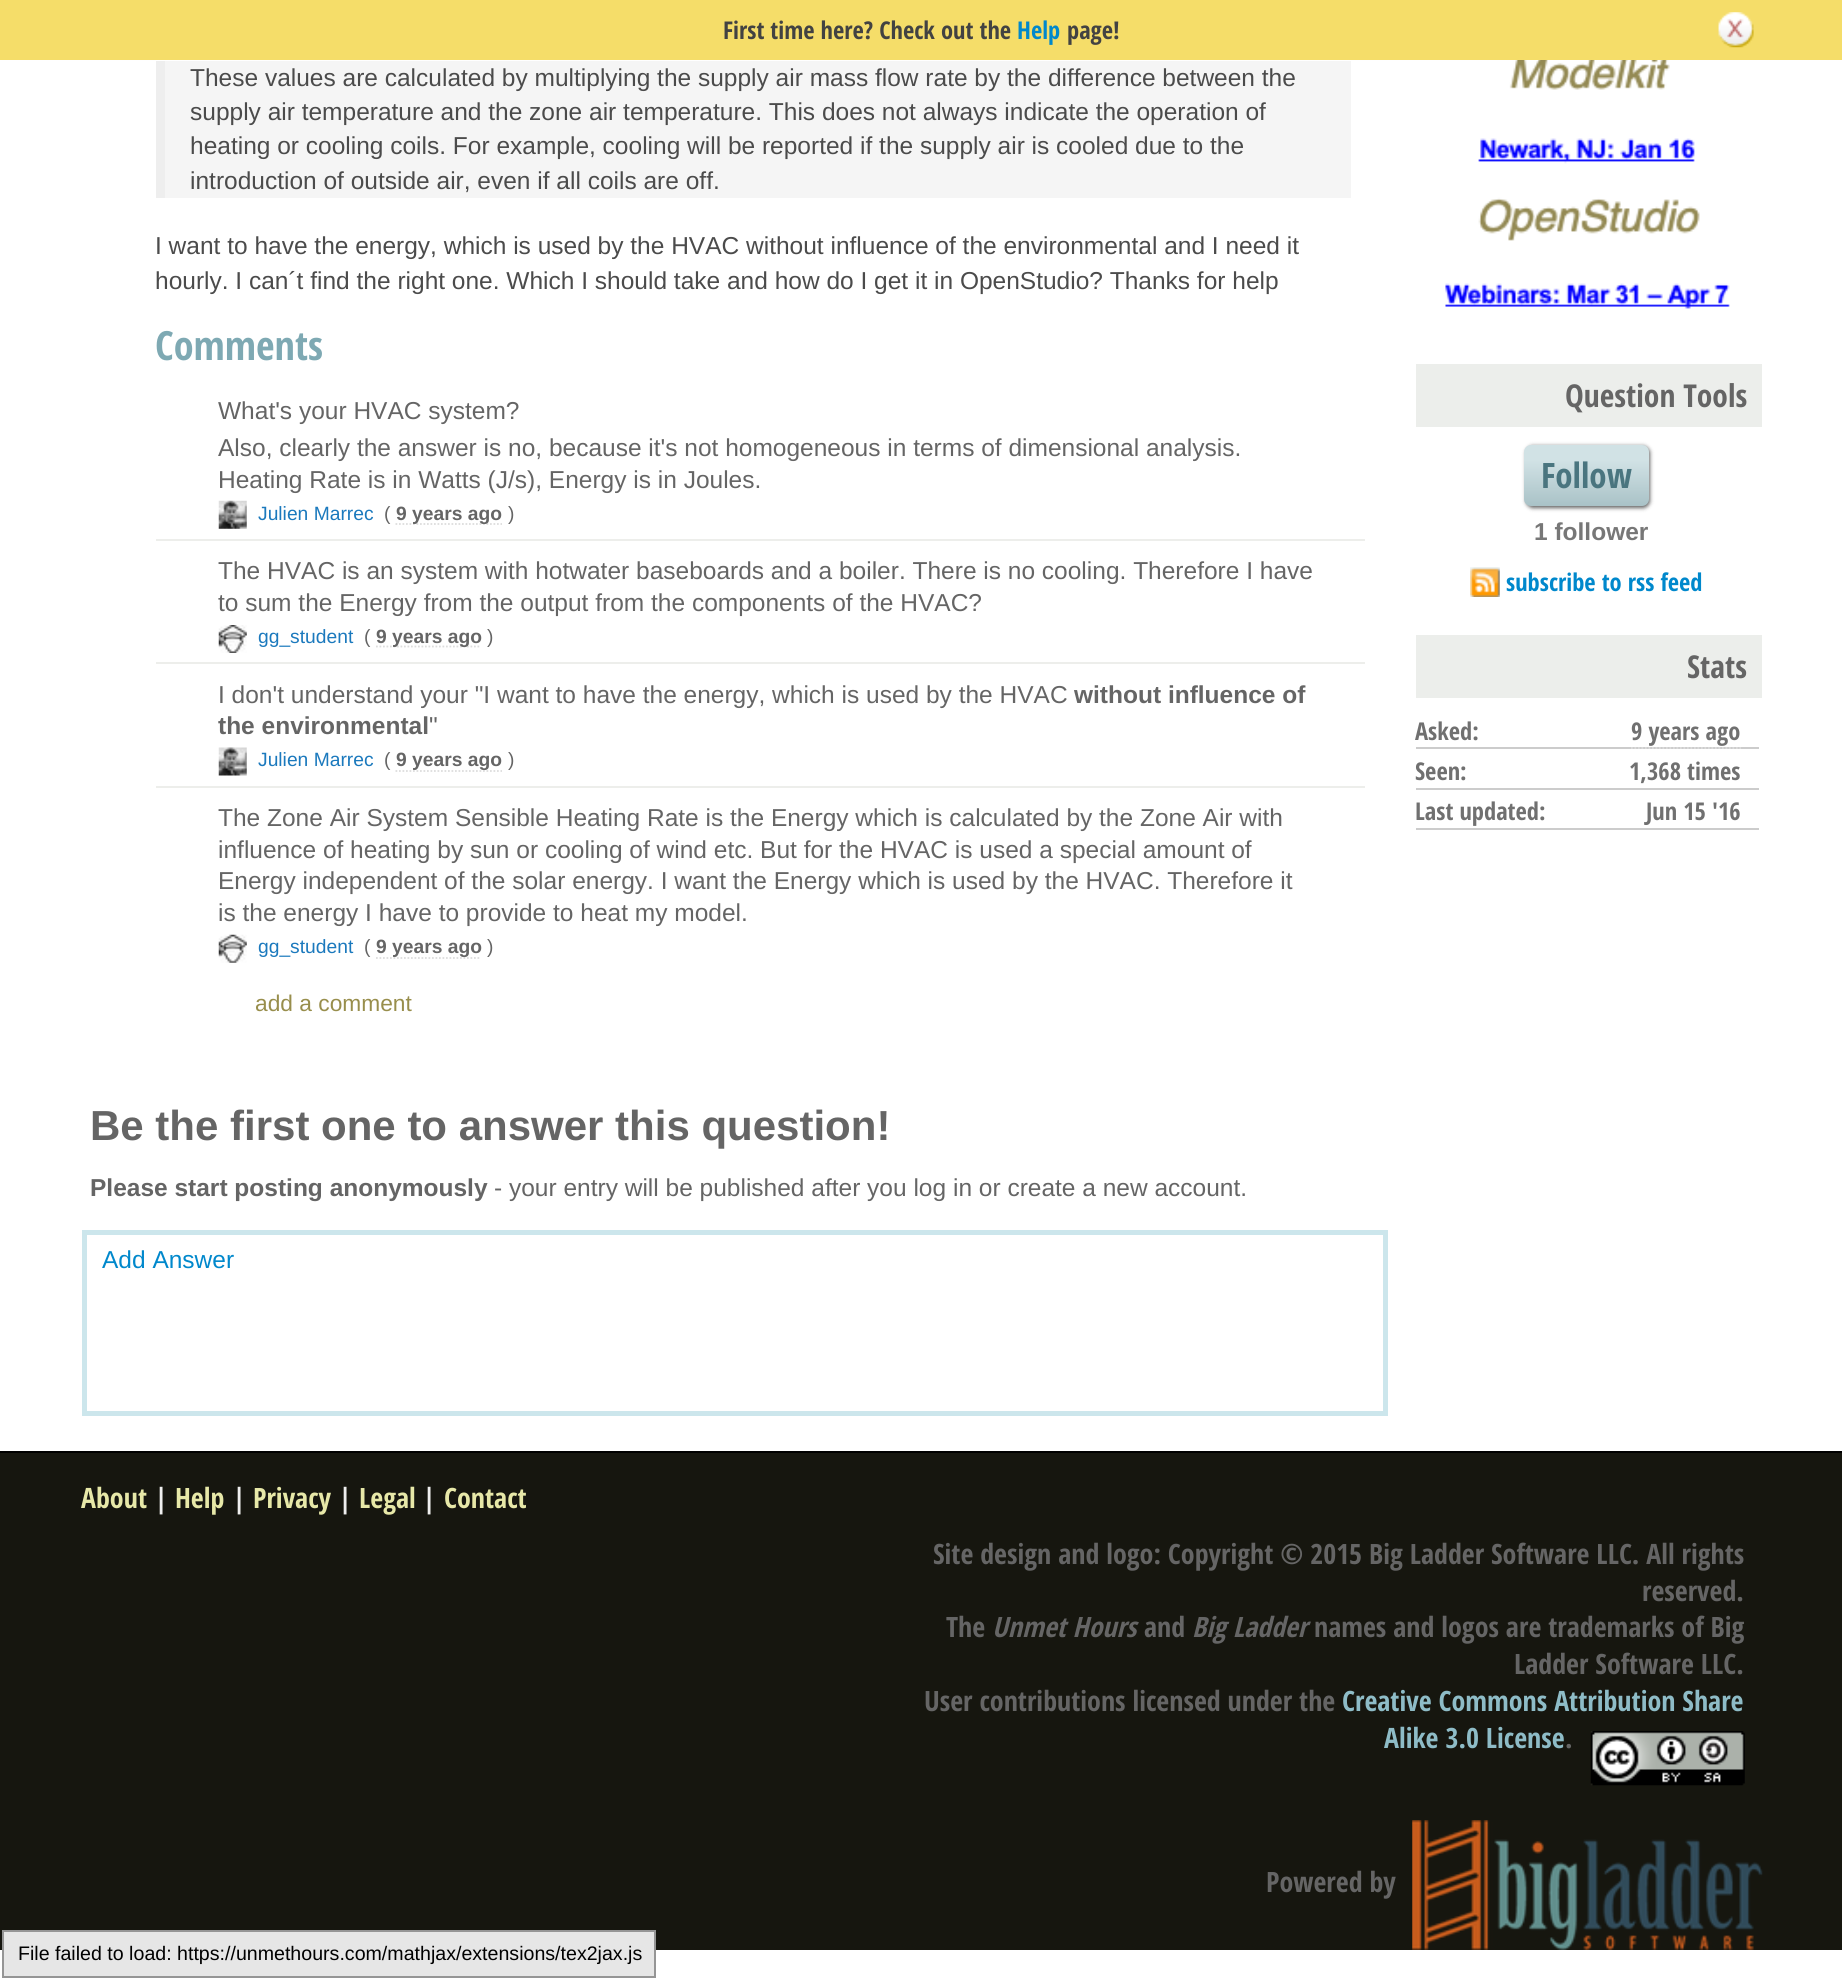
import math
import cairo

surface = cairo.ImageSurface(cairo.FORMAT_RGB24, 1842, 1981)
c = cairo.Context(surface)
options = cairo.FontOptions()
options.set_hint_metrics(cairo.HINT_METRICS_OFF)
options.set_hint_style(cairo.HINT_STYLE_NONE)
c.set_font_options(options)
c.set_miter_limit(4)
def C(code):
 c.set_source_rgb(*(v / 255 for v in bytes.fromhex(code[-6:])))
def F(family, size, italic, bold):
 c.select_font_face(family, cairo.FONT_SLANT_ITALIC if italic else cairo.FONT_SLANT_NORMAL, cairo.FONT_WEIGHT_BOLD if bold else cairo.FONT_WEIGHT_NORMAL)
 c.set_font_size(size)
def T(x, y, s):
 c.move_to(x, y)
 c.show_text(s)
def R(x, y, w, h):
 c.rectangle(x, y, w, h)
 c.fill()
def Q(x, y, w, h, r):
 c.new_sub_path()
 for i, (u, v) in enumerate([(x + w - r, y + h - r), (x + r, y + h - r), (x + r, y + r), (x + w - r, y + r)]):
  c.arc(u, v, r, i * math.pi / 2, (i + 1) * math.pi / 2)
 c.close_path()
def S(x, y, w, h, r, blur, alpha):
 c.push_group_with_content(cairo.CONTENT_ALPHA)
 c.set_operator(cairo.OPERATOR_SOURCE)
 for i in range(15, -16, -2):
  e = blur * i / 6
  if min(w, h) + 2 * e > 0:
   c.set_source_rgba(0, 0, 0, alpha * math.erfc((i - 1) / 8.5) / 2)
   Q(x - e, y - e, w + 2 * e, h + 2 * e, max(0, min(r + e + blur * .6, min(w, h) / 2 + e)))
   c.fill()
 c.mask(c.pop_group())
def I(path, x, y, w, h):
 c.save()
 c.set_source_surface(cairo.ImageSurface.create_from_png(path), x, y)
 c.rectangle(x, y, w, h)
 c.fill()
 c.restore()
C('ffffff')
c.paint()
C('f5dd69')
R(0,0,1842,60)
F('Open Sans Condensed',24.5,0,1)
C('424242')
T(723,39,'First time here? Check out the')
C('0088cc')
T(1017,39,'Help')
C('424242')
T(1067,39,'page!')
I('1.png',1718,12,36,36)
C('f5f5f5')
R(165,61,1186,137)
C('eeeeee')
R(156,61,9,137)
F('Liberation Sans',24.5,0,0)
C('4b4b4b')
T(190,86,'These values are calculated by multiplying the supply air mass flow rate by the difference between the')
T(190,120,'supply air temperature and the zone air temperature. This does not always indicate the operation of')
T(190,154,'heating or cooling coils. For example, cooling will be reported if the supply air is cooled due to the')
T(190,189,'introduction of outside air, even if all coils are off.')
T(155,254,'I want to have the energy, which is used by the HVAC without influence of the environmental and I need it')
T(155,289,'hourly. I can´t find the right one. Which I should take and how do I get it in OpenStudio? Thanks for help')
F('Open Sans Condensed',40.25,0,1)
C('7ea9b3')
T(155,360,'Comments')
C('edeeeb')
R(156,539,1209,2)
F('Liberation Sans',24.5,0,0)
C('656565')
T(218,419,'What\'s your HVAC system?')
T(218,456,'Also, clearly the answer is no, because it\'s not homogeneous in terms of dimensional analysis.')
T(218,488,'Heating Rate is in Watts (J/s), Energy is in Joules.')
I('2.png',218,500,29,29)
F('Liberation Sans',19.25,0,0)
C('1b79bd')
T(258,520,'Julien Marrec')
C('656565')
T(384,520,'(')
c.new_path()
c.move_to(395.5,524)
c.line_to(502,524)
C('dddddd')
c.set_line_width(1.8)
c.set_dash([1.75,1.75])
c.stroke()
F('Liberation Sans',19.25,0,1)
C('656565')
T(396,520,'9 years ago')
F('Liberation Sans',19.25,0,0)
T(508,520,')')
C('edeeeb')
R(156,662,1209,2)
F('Liberation Sans',24.5,0,0)
C('656565')
T(218,579,'The HVAC is an system with hotwater baseboards and a boiler. There is no cooling. Therefore I have')
T(218,611,'to sum the Energy from the output from the components of the HVAC?')
I('3.png',218,625,29,28)
F('Liberation Sans',19.25,0,0)
C('1b79bd')
T(258,643,'gg_student')
C('656565')
T(364,643,'(')
c.new_path()
c.move_to(376,646.5)
c.line_to(481,646.5)
C('dddddd')
c.stroke()
F('Liberation Sans',19.25,0,1)
C('656565')
T(376,643,'9 years ago')
F('Liberation Sans',19.25,0,0)
T(487,643,')')
C('edeeeb')
R(156,786,1209,2)
F('Liberation Sans',24.5,0,0)
C('656565')
T(218,703,'I don\'t understand your "I want to have the energy, which is used by the HVAC')
F('Liberation Sans',24.5,0,1)
T(1074,703,'without influence of')
T(218,734,'the environmental')
F('Liberation Sans',24.5,0,0)
T(429,734,'"')
I('4.png',218,747,29,29)
F('Liberation Sans',19.25,0,0)
C('1b79bd')
T(258,766,'Julien Marrec')
C('656565')
T(384,766,'(')
c.new_path()
c.move_to(395.5,771)
c.line_to(502,771)
C('dddddd')
c.stroke()
F('Liberation Sans',19.25,0,1)
C('656565')
T(396,766,'9 years ago')
F('Liberation Sans',19.25,0,0)
T(508,766,')')
F('Liberation Sans',24.5,0,0)
T(218,826,'The Zone Air System Sensible Heating Rate is the Energy which is calculated by the Zone Air with')
T(218,858,'influence of heating by sun or cooling of wind etc. But for the HVAC is used a special amount of')
T(218,889,'Energy independent of the solar energy. I want the Energy which is used by the HVAC. Therefore it')
T(218,921,'is the energy I have to provide to heat my model.')
I('5.png',218,934,29,29)
F('Liberation Sans',19.25,0,0)
C('1b79bd')
T(258,953,'gg_student')
C('656565')
T(364,953,'(')
c.new_path()
c.move_to(376,958)
c.line_to(481,958)
C('dddddd')
c.stroke()
F('Liberation Sans',19.25,0,1)
C('656565')
T(376,953,'9 years ago')
F('Liberation Sans',19.25,0,0)
T(487,953,')')
F('Liberation Sans',22.75,0,0)
C('988e4c')
T(255,1011,'add a comment')
F('Liberation Sans',42,0,1)
C('656565')
T(90,1140,'Be the first one to answer this question!')
F('Liberation Sans',24.5,0,1)
T(90,1196,'Please start posting anonymously')
F('Liberation Sans',24.5,0,0)
T(494,1196,'- your entry will be published after you log in or create a new account.')
c.rectangle(84.5,1232.5,1301,181)
C('cce6ec')
c.set_line_width(5)
c.set_dash([])
c.stroke()
C('0088cc')
T(102,1268,'Add Answer')
I('6.png',1438,60,299,249)
C('eceeeb')
R(1416,364,346,63)
F('Open Sans Condensed',31.5,0,1)
C('656565')
T(1565,407,'Question Tools')
C('636363')
S(1526,446,124,62,7,2,1)
gradient = cairo.LinearGradient(1586,445,1586,506)
gradient.add_color_stop_rgba(0,0.82,0.886,0.898,1)
gradient.add_color_stop_rgba(.25,0.82,0.886,0.898,1)
gradient.add_color_stop_rgba(1,0.663,0.761,0.78,1)
c.set_source(gradient)
Q(1524,445,125,61,7)
c.fill()
F('Open Sans Condensed',35,0,1)
C('4a757f')
T(1541,488,'Follow')
F('Liberation Sans',24.5,0,1)
C('777777')
T(1534,540,'1 follower')
I('7.png',1470,567,30,30)
F('Open Sans Condensed',24.5,0,1)
C('0088cc')
T(1506,591,'subscribe to rss feed')
C('eceeeb')
R(1416,635,346,63)
F('Open Sans Condensed',31.5,0,1)
C('656565')
T(1687,678,'Stats')
C('cccccc')
R(1416,747,343,2)
F('Open Sans Condensed',24.5,0,1)
C('707070')
T(1415,740,'Asked:')
T(1631,740,'9 years ago')
c.new_path()
c.move_to(1631,748)
c.line_to(1741,748)
C('dddddd')
c.set_line_width(1.8)
c.set_dash([1.75,1.75])
c.stroke()
C('cccccc')
R(1416,788,343,2)
C('707070')
T(1415,780,'Seen:')
T(1629,780,'1,368 times')
C('cccccc')
R(1416,828,343,2)
C('707070')
T(1415,820,'Last updated:')
T(1646,820,'Jun 15 \'16')
C('16160f')
R(0,1453,1842,497)
C('000000')
R(0,1451,1842,2)
F('Open Sans Condensed',28,0,1)
C('e7e8a8')
T(81,1508,'About')
C('eeeeee')
T(154,1508,'|')
C('e7e8a8')
T(175,1508,'Help')
C('eeeeee')
T(232,1508,'|')
C('e7e8a8')
T(253,1508,'Privacy')
C('eeeeee')
T(338,1508,'|')
C('e7e8a8')
T(359,1508,'Legal')
C('eeeeee')
T(422,1508,'|')
C('e7e8a8')
T(444,1508,'Contact')
C('656565')
T(933,1564,'Site design and logo: Copyright © 2015 Big Ladder Software LLC. All rights')
T(1642,1601,'reserved.')
T(946,1637,'The')
F('Open Sans Condensed',28,1,1)
T(992,1637,'Unmet Hours')
F('Open Sans Condensed',28,0,1)
T(1144,1637,'and')
F('Open Sans Condensed',28,1,1)
T(1192,1637,'Big Ladder')
F('Open Sans Condensed',28,0,1)
T(1314,1637,'names and logos are trademarks of Big')
T(1514,1674,'Ladder Software LLC.')
T(924,1711,'User contributions licensed under the')
C('8ebcc7')
T(1342,1711,'Creative Commons Attribution Share')
T(1384,1748,'Alike 3.0 License')
C('656565')
T(1565,1748,'.')
I('8.png',1590,1731,155,55)
T(1266,1892,'Powered by')
I('9.png',1412,1820,351,130)
C('e6e6e6')
c.rectangle(3,1931,652,46)
c.fill_preserve()
C('959595')
c.set_line_width(2)
c.set_dash([])
c.stroke()
F('Liberation Sans',19.6,0,0)
C('000000')
T(18,1960,'File failed to load: https://unmethours.com/mathjax/extensions/tex2jax.js')
surface.write_to_png('o.png')
